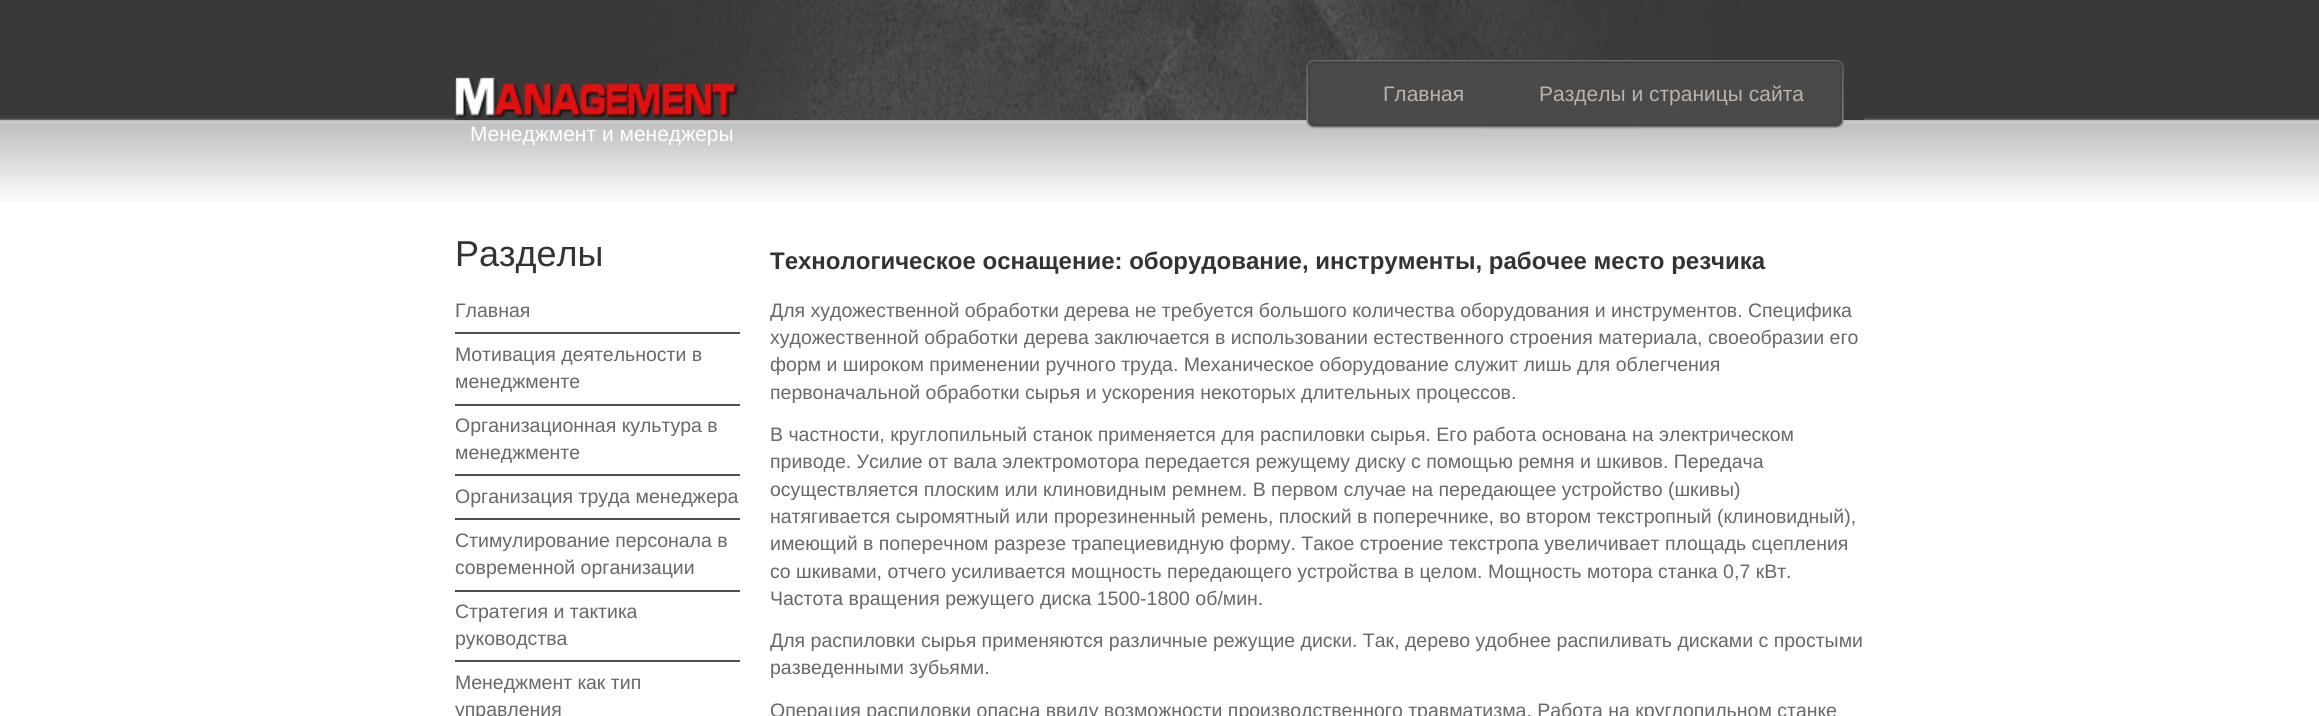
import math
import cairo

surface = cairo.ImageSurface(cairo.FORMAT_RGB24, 2319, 716)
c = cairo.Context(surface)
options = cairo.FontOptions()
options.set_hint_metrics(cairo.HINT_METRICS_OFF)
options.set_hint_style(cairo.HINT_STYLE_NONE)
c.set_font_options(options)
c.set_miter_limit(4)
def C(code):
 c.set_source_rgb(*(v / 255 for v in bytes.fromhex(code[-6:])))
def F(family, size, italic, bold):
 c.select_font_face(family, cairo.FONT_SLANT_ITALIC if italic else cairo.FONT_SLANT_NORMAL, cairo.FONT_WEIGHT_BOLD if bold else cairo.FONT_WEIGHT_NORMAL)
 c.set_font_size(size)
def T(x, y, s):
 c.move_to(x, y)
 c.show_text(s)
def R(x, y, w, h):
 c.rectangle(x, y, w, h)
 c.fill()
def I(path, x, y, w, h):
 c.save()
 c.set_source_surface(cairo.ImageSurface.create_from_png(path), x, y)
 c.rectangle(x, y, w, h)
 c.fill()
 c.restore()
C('ffffff')
c.paint()
I('1.png',0,0,2319,202)
I('2.png',454,0,1411,120)
I('3.png',1306,60,538,69)
F('Liberation Sans',21,0,0)
C('bbb3ac')
T(1383,101,'Главная')
T(1539,101,'Разделы и страницы сайта')
I('4.png',455,77,283,41)
C('ffffff')
T(470,141,'Менеджмент и менеджеры')
F('Liberation Sans',36,0,0)
C('333333')
T(455,266,'Разделы')
C('4e4e4e')
R(455,332,285,2)
F('Liberation Sans',19.5,0,0)
C('686868')
T(455,317,'Главная')
C('4e4e4e')
R(455,404,285,2)
C('686868')
T(455,361,'Мотивация деятельности в')
T(455,388,'менеджменте')
C('4e4e4e')
R(455,474,285,2)
C('686868')
T(455,432,'Организационная культура в')
T(455,459,'менеджменте')
C('4e4e4e')
R(455,518,285,2)
C('686868')
T(455,503,'Организация труда менеджера')
C('4e4e4e')
R(455,590,285,2)
C('686868')
T(455,547,'Стимулирование персонала в')
T(455,574,'современной организации')
C('4e4e4e')
R(455,660,285,2)
C('686868')
T(455,618,'Стратегия и тактика')
T(455,645,'руководства')
T(455,689,'Менеджмент как тип')
T(455,716,'управления')
F('Liberation Sans',24,0,1)
C('333333')
T(770,269,'Технологическое оснащение: оборудование, инструменты, рабочее место резчика')
F('Liberation Sans',19.5,0,0)
C('686868')
T(770,317,'Для художественной обработки дерева не требуется большого количества оборудования и инструментов. Специфика')
T(770,344,'художественной обработки дерева заключается в использовании естественного строения материала, своеобразии его')
T(770,371,'форм и широком применении ручного труда. Механическое оборудование служит лишь для облегчения')
T(770,399,'первоначальной обработки сырья и ускорения некоторых длительных процессов.')
T(770,441,'В частности, круглопильный станок применяется для распиловки сырья. Его работа основана на электрическом')
T(770,468,'приводе. Усилие от вала электромотора передается режущему диску с помощью ремня и шкивов. Передача')
T(770,496,'осуществляется плоским или клиновидным ремнем. В первом случае на передающее устройство (шкивы)')
T(770,523,'натягивается сыромятный или прорезиненный ремень, плоский в поперечнике, во втором текстропный (клиновидный),')
T(770,550,'имеющий в поперечном разрезе трапециевидную форму. Такое строение текстропа увеличивает площадь сцепления')
T(770,578,'со шкивами, отчего усиливается мощность передающего устройства в целом. Мощность мотора станка 0,7 кВт.')
T(770,605,'Частота вращения режущего диска 1500-1800 об/мин.')
T(770,647,'Для распиловки сырья применяются различные режущие диски. Так, дерево удобнее распиливать дисками с простыми')
T(770,674,'разведенными зубьями.')
T(770,717,'Операция распиловки опасна ввиду возможности производственного травматизма. Работа на круглопильном станке')
surface.write_to_png('o.png')
